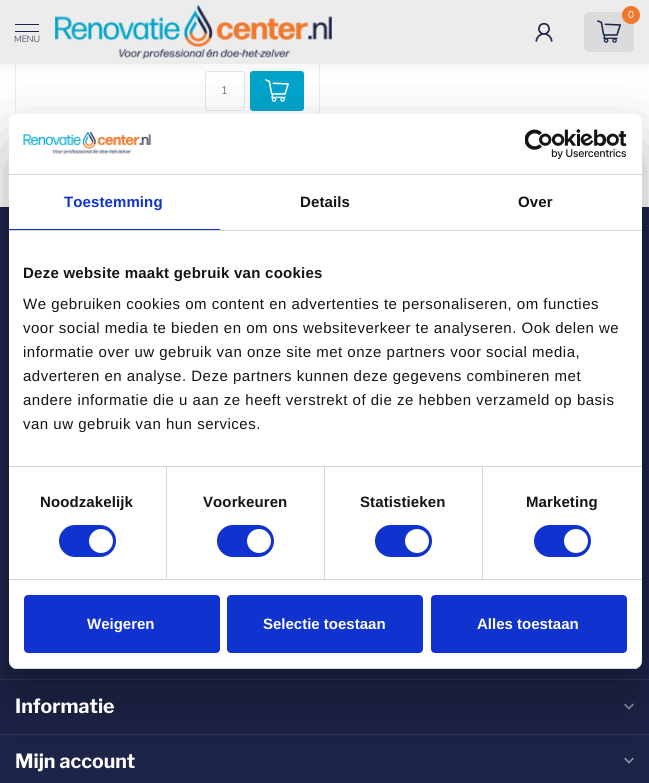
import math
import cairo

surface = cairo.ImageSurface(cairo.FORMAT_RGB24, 649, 783)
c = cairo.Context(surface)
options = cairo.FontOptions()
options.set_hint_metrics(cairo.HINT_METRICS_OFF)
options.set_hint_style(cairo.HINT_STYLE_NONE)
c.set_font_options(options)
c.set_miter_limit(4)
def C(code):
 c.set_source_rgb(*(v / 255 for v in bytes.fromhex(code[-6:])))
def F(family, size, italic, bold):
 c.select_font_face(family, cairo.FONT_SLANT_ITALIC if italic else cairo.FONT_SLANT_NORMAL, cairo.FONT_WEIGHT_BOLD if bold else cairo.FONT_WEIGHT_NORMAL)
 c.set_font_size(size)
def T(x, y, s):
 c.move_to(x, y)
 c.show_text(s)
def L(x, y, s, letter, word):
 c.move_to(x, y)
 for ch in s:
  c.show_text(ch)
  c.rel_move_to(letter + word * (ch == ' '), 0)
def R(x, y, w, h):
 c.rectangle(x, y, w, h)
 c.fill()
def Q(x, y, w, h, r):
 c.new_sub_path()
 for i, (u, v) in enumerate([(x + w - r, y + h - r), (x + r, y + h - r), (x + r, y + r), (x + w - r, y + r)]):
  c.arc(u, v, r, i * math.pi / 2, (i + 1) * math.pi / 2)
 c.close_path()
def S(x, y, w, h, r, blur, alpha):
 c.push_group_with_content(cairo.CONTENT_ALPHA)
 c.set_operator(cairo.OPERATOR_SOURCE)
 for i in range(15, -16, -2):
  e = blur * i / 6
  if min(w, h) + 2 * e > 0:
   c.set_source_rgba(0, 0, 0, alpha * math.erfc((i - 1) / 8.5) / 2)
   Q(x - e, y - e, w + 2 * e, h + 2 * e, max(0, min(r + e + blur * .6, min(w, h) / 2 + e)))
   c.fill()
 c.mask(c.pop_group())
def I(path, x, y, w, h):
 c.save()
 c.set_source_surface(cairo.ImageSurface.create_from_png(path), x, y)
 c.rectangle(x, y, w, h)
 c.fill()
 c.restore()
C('ffffff')
c.paint()
c.rectangle(15.5,-.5,304,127)
C('eeeeee')
c.set_line_width(1)
c.stroke()
Q(205.5,71.5,39,39,2.5)
C('e7e7e7')
c.stroke()
C('00a4cb')
Q(250,71,54,40,3)
c.fill()
I('4.png',265,79,24,23)
C('000000')
S(0,-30,649,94,0,10,.07)
C('ececec')
R(0,0,649,64)
C('dbdbde')
Q(584,12,50,40,5)
c.fill()
C('ef782d')
c.arc(631,15,9,0,2 * math.pi)
c.fill()
F('Nunito',10,0,0)
C('ffffff')
T(628,18,'0')
I('1.png',597,20,24,23)
I('2.png',535,22,18,20)
C('1c2448')
R(15,24,24,1)
R(15,31,24,1)
F('Nunito Light',9,0,0)
T(14,42,'MENU')
I('3.png',55,4,277,55)
F('Nunito',11,0,0)
C('777777')
T(221,94,'1')
C('1c2448')
R(0,207,649,576)
C('323856')
R(0,679,649,1)
R(0,734,649,1)
I('7.png',624,703,10,7)
I('7.png',624,757,10,7)
C('000000')
S(9,146,633,555,8,34,.3)
C('ffffff')
Q(9,114,633,555,8)
c.fill()
C('d6d6d6')
R(9,174,633,1)
I('5.png',23,132,128,23)
I('6.png',525,129,102,30)
R(9,230,633,1)
C('1032cf')
R(9,229,211,1)
F('Liberation Sans',15,0,1)
L(64,207,'Toestemming',.1,0)
C('141414')
L(300,207,'Details',.1,0)
L(518,207,'Over',.1,0)
C('d6d6d6')
R(9,466,633,1)
C('141414')
L(23,278,'Deze website maakt gebruik van cookies',.25,0)
F('Liberation Sans',15,0,0)
L(23,309,'We gebruiken cookies om content en advertenties te personaliseren, om functies',.5,0)
L(23,333,'voor social media te bieden en om ons websiteverkeer te analyseren. Ook delen we',.5,0)
L(23,357,'informatie over uw gebruik van onze site met onze partners voor social media,',.5,0)
L(23,381,'adverteren en analyse. Deze partners kunnen deze gegevens combineren met',.5,0)
L(23,405,'andere informatie die u aan ze heeft verstrekt of die ze hebben verzameld op basis',.5,0)
L(23,429,'van uw gebruik van hun services.',.5,0)
C('d6d6d6')
R(9,579,633,1)
R(166,467,1,112)
F('Liberation Sans',15,0,1)
C('141414')
L(40,507,'Noodzakelijk',.1,0)
C('1032cf')
Q(59,525,57,32,16)
c.fill()
C('ffffff')
c.arc(101,541,12,0,2 * math.pi)
c.fill()
C('d6d6d6')
R(324,467,1,112)
C('141414')
L(203,507,'Voorkeuren',.1,0)
C('1032cf')
Q(217,525,57,32,16)
c.fill()
C('ffffff')
c.arc(259,541,12,0,2 * math.pi)
c.fill()
C('d6d6d6')
R(482,467,1,112)
C('141414')
L(360,507,'Statistieken',.1,0)
C('1032cf')
Q(375,525,57,32,16)
c.fill()
C('ffffff')
c.arc(417,541,12,0,2 * math.pi)
c.fill()
C('141414')
L(526,507,'Marketing',.1,0)
C('1032cf')
Q(534,525,57,32,16)
c.fill()
C('ffffff')
c.arc(576,541,12,0,2 * math.pi)
c.fill()
c.save()
Q(9,114,633,555,8)
c.clip()
C('d6d6d6')
R(9,668,633,1)
c.restore()
C('1032cf')
Q(25,596,194,56,3)
c.fill_preserve()
c.set_line_width(2)
c.stroke()
C('ffffff')
T(87,629,'Weigeren')
C('1032cf')
Q(228,596,194,56,3)
c.fill_preserve()
c.stroke()
C('ffffff')
T(263,629,'Selectie toestaan')
C('1032cf')
Q(432,596,194,56,3)
c.fill_preserve()
c.stroke()
C('ffffff')
T(477,629,'Alles toestaan')
F('Libre Franklin',19.5,0,1)
T(15,713,'Informatie')
T(15,768,'Mijn account')
surface.write_to_png('o.png')
